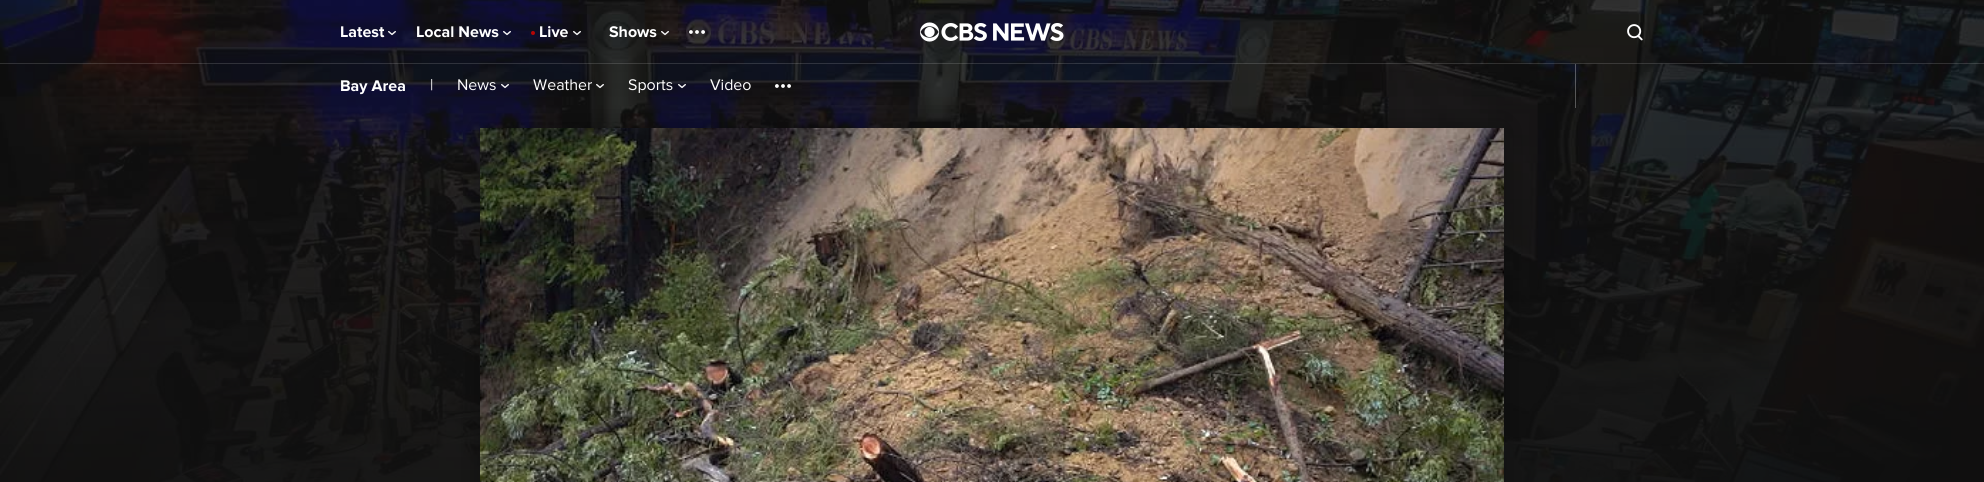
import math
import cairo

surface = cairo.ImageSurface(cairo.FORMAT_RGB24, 1984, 482)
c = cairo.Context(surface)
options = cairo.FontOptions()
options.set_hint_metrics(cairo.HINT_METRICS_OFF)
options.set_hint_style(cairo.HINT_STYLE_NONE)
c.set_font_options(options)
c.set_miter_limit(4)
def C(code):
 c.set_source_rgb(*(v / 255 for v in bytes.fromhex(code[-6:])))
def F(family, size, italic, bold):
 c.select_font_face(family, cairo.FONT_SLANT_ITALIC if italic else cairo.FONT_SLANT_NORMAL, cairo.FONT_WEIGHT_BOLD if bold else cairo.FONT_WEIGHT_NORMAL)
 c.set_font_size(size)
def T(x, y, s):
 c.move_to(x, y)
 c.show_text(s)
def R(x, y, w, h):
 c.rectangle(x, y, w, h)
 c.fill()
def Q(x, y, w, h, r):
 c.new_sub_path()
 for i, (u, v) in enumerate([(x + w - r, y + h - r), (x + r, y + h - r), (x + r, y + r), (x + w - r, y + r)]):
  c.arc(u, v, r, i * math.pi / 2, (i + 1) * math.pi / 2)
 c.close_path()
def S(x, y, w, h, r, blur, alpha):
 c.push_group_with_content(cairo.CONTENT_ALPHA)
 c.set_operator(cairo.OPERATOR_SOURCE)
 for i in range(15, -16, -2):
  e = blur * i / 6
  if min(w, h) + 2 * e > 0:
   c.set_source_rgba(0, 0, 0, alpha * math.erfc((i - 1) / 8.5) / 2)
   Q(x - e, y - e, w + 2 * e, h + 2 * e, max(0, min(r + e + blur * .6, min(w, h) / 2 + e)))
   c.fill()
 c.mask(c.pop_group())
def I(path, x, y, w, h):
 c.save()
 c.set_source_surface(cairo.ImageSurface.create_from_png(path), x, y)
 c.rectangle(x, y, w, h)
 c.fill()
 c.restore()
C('101010')
c.paint()
I('1.png',0,0,1984,482)
C('000000')
S(480,128,1024,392,0,12.5,.3)
I('2.png',480,128,1024,354)
c.set_source_rgba(0.949,0.949,0.949,0.15)
R(0,63,1984,1)
F('Proxima Nova',16,0,1)
C('ffffff')
T(340,37,'Latest')
I('3.png',388,31,8,5)
T(416,37,'Local News')
I('4.png',503,31,8,5)
C('b60505')
c.arc(533,33,2,0,2 * math.pi)
c.fill()
C('ffffff')
T(539,37,'Live')
I('5.png',573,31,8,5)
T(609,37,'Shows')
I('6.png',661,31,8,5)
I('7.png',689,30,16,4)
I('8.png',920,22,144,20)
I('9.png',1627,24,16,17)
T(340,91,'Bay Area')
F('Proxima Nova',16,0,0)
T(430,90,'|')
T(457,90,'News')
I('10.png',501,84,8,5)
T(533,90,'Weather')
I('11.png',596,84,8,5)
T(628,90,'Sports')
I('12.png',678,84,8,5)
T(710,90,'Video')
I('13.png',775,84,16,4)
c.set_source_rgba(1,1,1,0.3)
R(1575,64,1,44)
surface.write_to_png('o.png')
